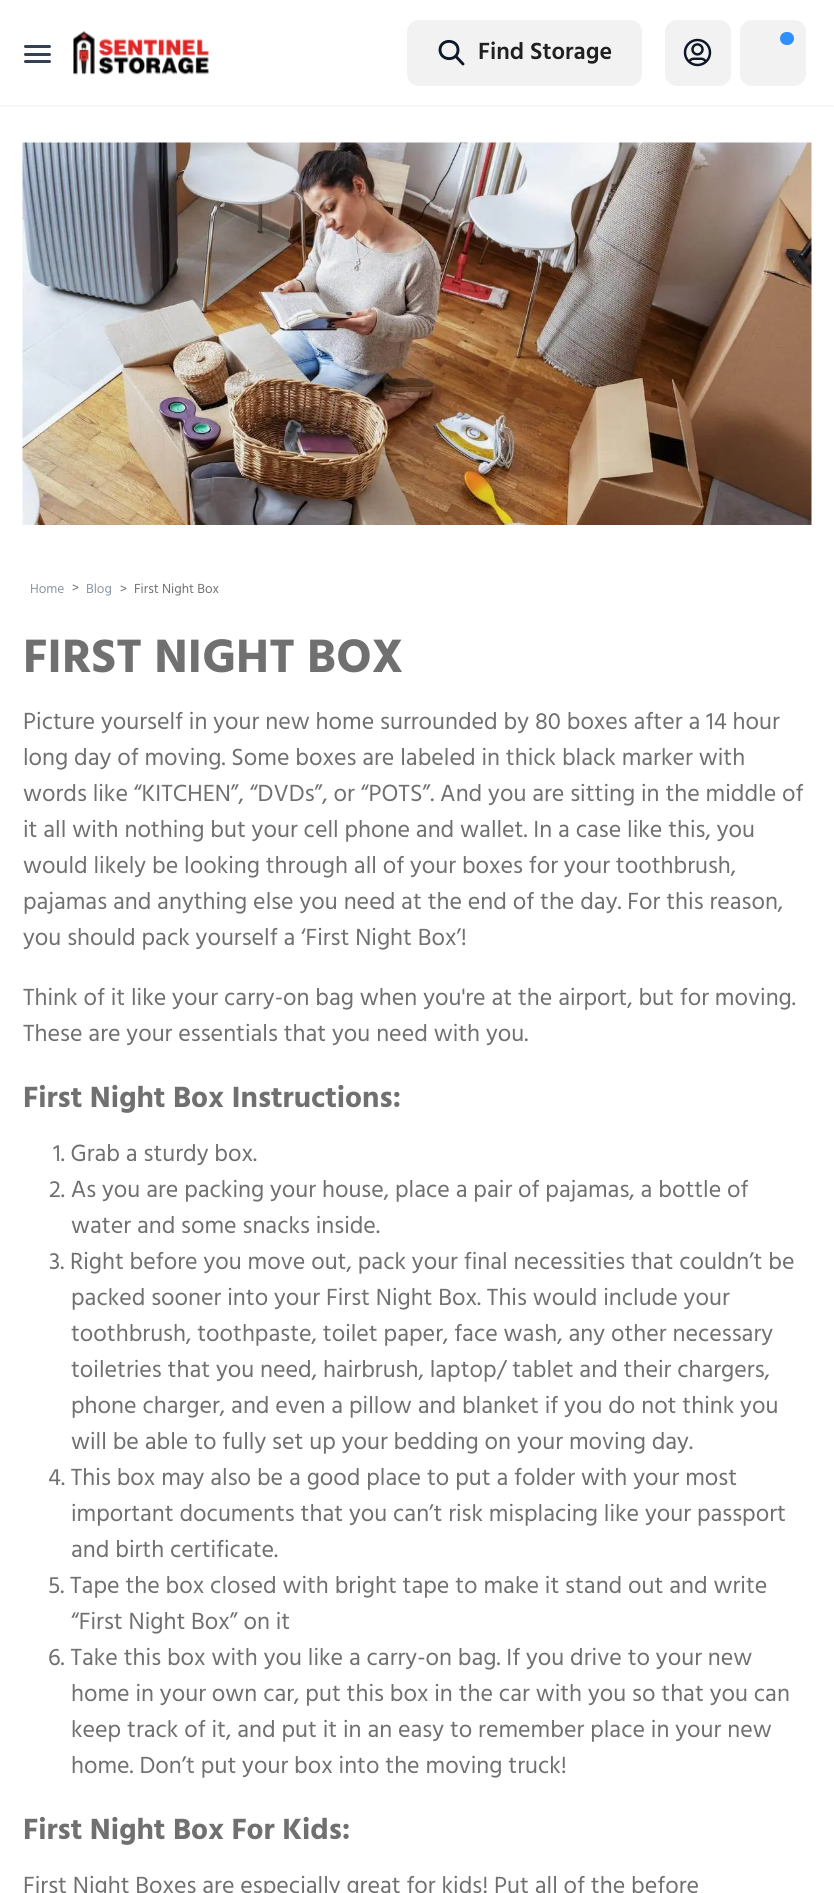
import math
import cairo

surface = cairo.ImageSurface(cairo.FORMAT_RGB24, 834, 1893)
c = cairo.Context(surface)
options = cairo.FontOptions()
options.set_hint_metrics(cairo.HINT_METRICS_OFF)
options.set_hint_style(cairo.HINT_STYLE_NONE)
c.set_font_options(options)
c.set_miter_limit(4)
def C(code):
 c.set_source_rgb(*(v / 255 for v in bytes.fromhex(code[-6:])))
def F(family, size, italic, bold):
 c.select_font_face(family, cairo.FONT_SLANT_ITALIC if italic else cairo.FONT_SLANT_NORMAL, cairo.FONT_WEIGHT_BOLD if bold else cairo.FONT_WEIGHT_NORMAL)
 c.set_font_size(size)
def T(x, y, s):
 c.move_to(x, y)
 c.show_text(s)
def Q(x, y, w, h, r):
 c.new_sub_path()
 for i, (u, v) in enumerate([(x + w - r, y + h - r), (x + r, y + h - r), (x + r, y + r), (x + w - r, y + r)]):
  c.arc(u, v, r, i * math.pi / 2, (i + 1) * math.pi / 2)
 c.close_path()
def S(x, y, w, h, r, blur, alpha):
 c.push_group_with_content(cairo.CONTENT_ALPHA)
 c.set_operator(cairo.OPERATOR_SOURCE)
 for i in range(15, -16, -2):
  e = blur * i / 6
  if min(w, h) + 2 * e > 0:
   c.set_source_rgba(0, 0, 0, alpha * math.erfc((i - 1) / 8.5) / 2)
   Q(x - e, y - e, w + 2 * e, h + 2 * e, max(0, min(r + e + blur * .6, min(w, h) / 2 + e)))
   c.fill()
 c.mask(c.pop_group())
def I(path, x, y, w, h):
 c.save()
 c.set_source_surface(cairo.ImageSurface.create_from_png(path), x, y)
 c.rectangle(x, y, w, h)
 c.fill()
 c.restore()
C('ffffff')
c.paint()
c.save()
c.rectangle(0,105,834,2)
c.clip()
C('101828')
S(0,2,834,105,0,1.5,.05)
c.restore()
C('344054')
Q(24,45,27,3,1.5)
c.fill()
Q(24,53,27,3,1.5)
c.fill()
Q(24,60,27,3,1.5)
c.fill()
I('1.png',73,31,136,44)
C('f2f2f2')
Q(407,20,235,66,12)
c.fill()
c.new_path()
c.move_to(463,64)
c.line_to(455.5,56)
c.move_to(458,50)
c.curve_to(458,61.5,440.5,61.5,440,50)
c.curve_to(440,38.5,458,38.5,458,50)
c.close_path()
C('101828')
c.set_line_width(2.9)
c.set_line_cap(cairo.LINE_CAP_ROUND)
c.set_line_join(cairo.LINE_JOIN_ROUND)
c.stroke()
F('Hind SemiBold',24,0,0)
C('202020')
T(478,59,'Find Storage')
C('f2f2f2')
Q(665,20,66,66,12)
c.fill()
I('2.png',683,38,29,29)
Q(740,20,66,66,12)
c.fill()
C('2e90fa')
Q(780,32,14,13,6.5)
c.fill()
I('3.png',22,142,790,383)
F('Hind',13.5,0,0)
C('8895a3')
T(30,593,'Home')
C('707070')
T(72,592,'>')
C('8895a3')
T(86,593,'Blog')
C('707070')
T(120,593,'>')
T(134,593,'First Night Box')
F('Hind',48,0,1)
T(23,672,'FIRST NIGHT BOX')
F('Hind',24,0,0)
T(23,729,'Picture yourself in your new home surrounded by 80 boxes after a 14 hour')
T(23,765,'long day of moving. Some boxes are labeled in thick black marker with')
T(23,801,'words like “KITCHEN”, “DVDs”, or “POTS”. And you are sitting in the middle of')
T(23,837,'it all with nothing but your cell phone and wallet. In a case like this, you')
T(23,873,'would likely be looking through all of your boxes for your toothbrush,')
T(23,909,'pajamas and anything else you need at the end of the day. For this reason,')
T(23,945,'you should pack yourself a ‘First Night Box’!')
T(23,1005,'Think of it like your carry-on bag when you\'re at the airport, but for moving.')
T(23,1041,'These are your essentials that you need with you.')
F('Hind',30,0,1)
T(23,1107,'First Night Box Instructions:')
F('Hind',24,0,0)
T(53,1161,'1. Grab a sturdy box.')
T(49,1197,'2. As you are packing your house, place a pair of pajamas, a bottle of')
T(71,1233,'water and some snacks inside.')
T(49,1269,'3. Right before you move out, pack your final necessities that couldn’t be')
T(71,1305,'packed sooner into your First Night Box. This would include your')
T(71,1341,'toothbrush, toothpaste, toilet paper, face wash, any other necessary')
T(71,1377,'toiletries that you need, hairbrush, laptop/ tablet and their chargers,')
T(71,1413,'phone charger, and even a pillow and blanket if you do not think you')
T(71,1449,'will be able to fully set up your bedding on your moving day.')
T(48,1485,'4. This box may also be a good place to put a folder with your most')
T(71,1521,'important documents that you can’t risk misplacing like your passport')
T(71,1557,'and birth certificate.')
T(48,1593,'5. Tape the box closed with bright tape to make it stand out and write')
T(71,1629,'“First Night Box” on it')
T(48,1665,'6. Take this box with you like a carry-on bag. If you drive to your new')
T(71,1701,'home in your own car, put this box in the car with you so that you can')
T(71,1737,'keep track of it, and put it in an easy to remember place in your new')
T(71,1773,'home. Don’t put your box into the moving truck!')
F('Hind',30,0,1)
T(23,1839,'First Night Box For Kids:')
F('Hind',24,0,0)
T(23,1893,'First Night Boxes are especially great for kids! Put all of the before')
surface.write_to_png('o.png')
